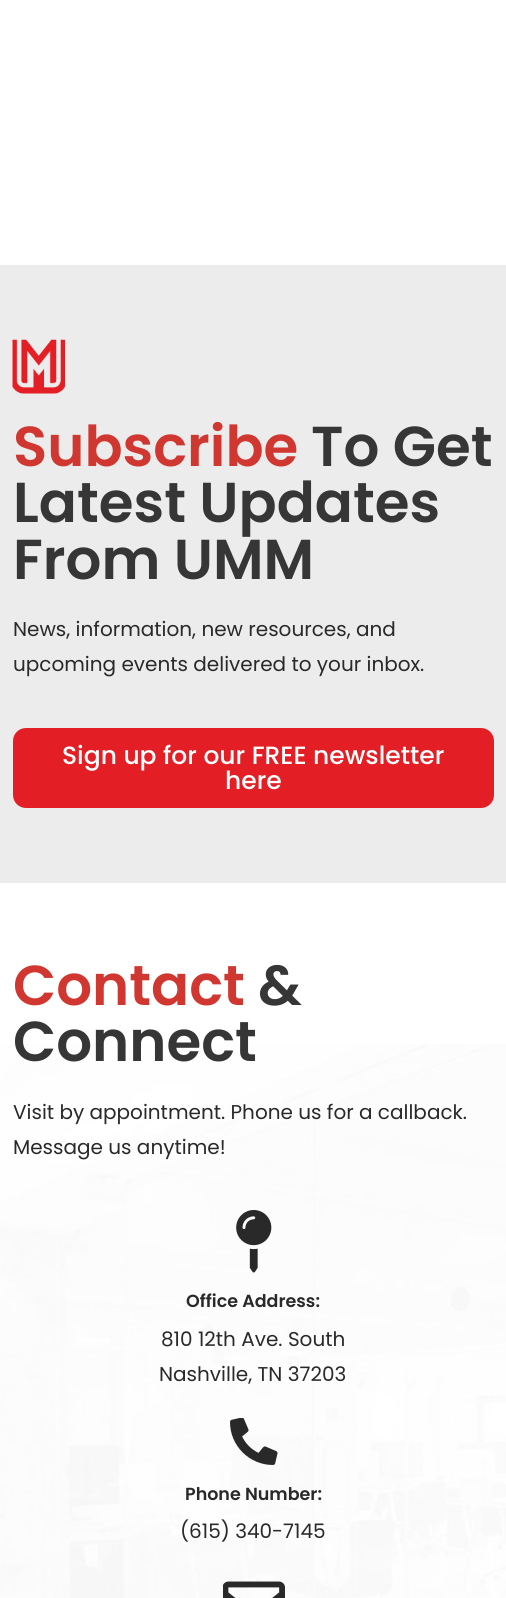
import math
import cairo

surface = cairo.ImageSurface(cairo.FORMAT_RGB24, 506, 1598)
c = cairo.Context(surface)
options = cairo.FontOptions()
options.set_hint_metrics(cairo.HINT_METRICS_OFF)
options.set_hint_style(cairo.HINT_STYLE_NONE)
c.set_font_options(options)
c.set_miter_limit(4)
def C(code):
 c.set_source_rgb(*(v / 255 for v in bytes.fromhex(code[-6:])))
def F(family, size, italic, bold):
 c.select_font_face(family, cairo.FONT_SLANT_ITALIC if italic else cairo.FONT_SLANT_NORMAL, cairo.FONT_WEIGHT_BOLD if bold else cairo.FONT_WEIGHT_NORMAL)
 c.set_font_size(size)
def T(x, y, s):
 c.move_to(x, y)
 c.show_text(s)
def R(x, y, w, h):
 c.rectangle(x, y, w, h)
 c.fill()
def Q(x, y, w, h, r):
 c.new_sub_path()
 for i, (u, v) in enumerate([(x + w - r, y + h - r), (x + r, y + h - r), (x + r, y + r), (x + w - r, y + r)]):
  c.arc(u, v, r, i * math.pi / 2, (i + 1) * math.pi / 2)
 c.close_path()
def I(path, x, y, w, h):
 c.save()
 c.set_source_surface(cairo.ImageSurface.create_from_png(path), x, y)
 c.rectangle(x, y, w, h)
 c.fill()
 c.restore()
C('ffffff')
c.paint()
C('ececec')
R(0,265,506,618)
I('1.png',12,339,53,55)
F('Poppins SemiBold',56.25,0,0)
C('d13731')
T(13,466,'Subscribe')
C('363636')
T(311,466,'To Get')
T(13,522,'Latest Updates')
T(13,579,'From UMM')
F('Poppins',20,0,0)
C('292929')
T(13,636,'News, information, new resources, and')
T(13,671,'upcoming events delivered to your inbox.')
C('e31f25')
Q(13,728,481,80,13)
c.fill()
F('Poppins Medium',25,0,0)
C('ffffff')
T(62,764,'Sign up for our FREE newsletter')
T(225,789,'here')
F('Poppins SemiBold',56.25,0,0)
C('d13731')
T(13,1005,'Contact')
C('363636')
T(258,1005,'&')
I('5.png',0,1044,506,554)
T(13,1061,'Connect')
F('Poppins',20,0,0)
C('292929')
T(13,1119,'Visit by appointment. Phone us for a callback.')
T(13,1154,'Message us anytime!')
I('2.png',236,1210,36,63)
F('Poppins SemiBold',17.5,0,0)
T(186,1307,'Office Address:')
F('Poppins',20,0,0)
T(161,1346,'810 12th Ave. South')
T(159,1381,'Nashville, TN 37203')
I('3.png',230,1418,48,47)
F('Poppins SemiBold',17.5,0,0)
T(185,1500,'Phone Number:')
F('Poppins',20,0,0)
T(180,1538,'(615) 340-7145')
I('4.png',223,1581,62,17)
surface.write_to_png('o.png')
